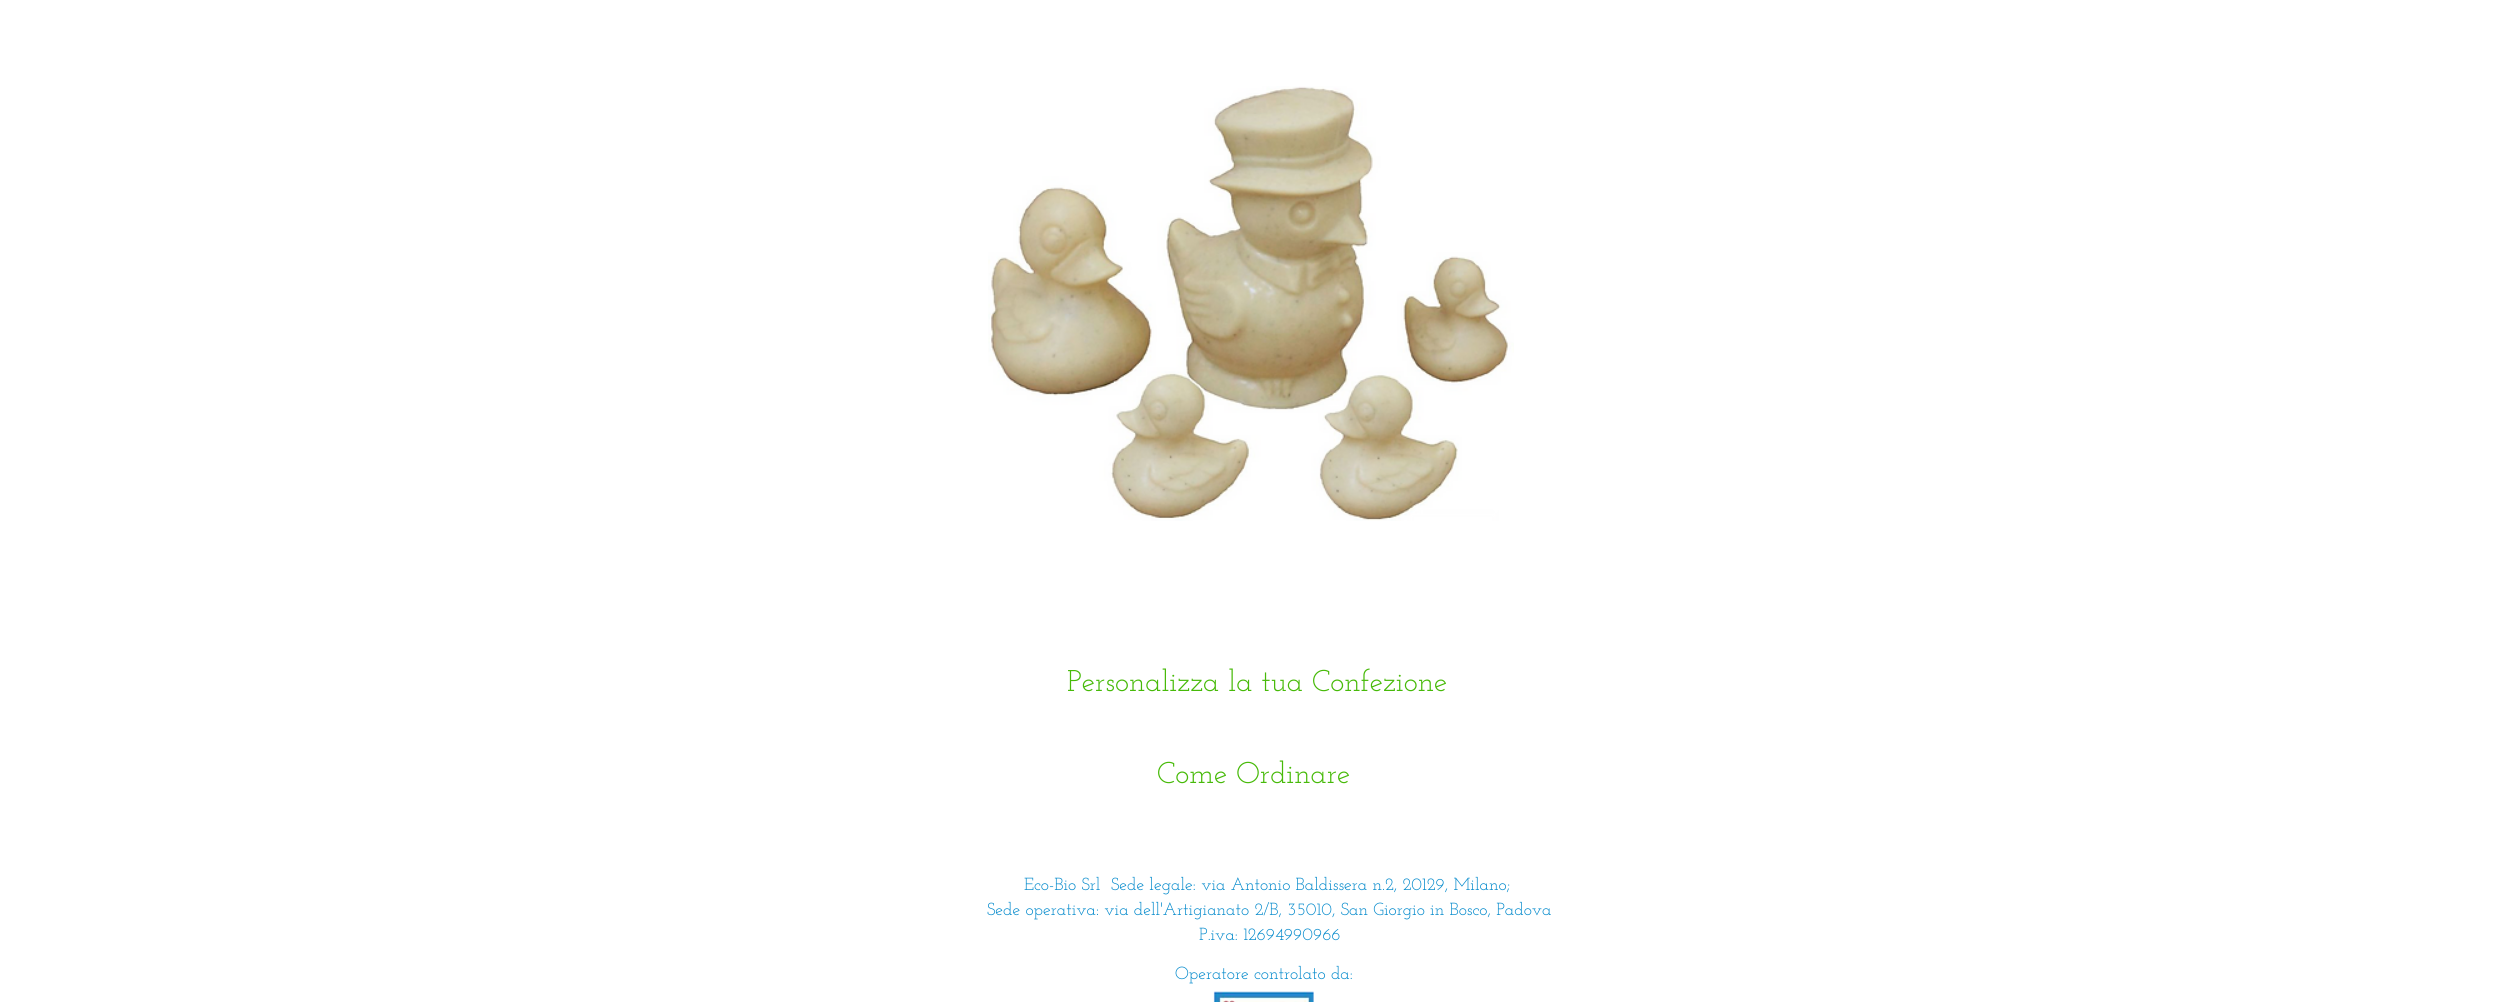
import math
import cairo

surface = cairo.ImageSurface(cairo.FORMAT_RGB24, 2513, 1002)
c = cairo.Context(surface)
options = cairo.FontOptions()
options.set_hint_metrics(cairo.HINT_METRICS_OFF)
options.set_hint_style(cairo.HINT_STYLE_NONE)
c.set_font_options(options)
c.set_miter_limit(4)
def C(code):
 c.set_source_rgb(*(v / 255 for v in bytes.fromhex(code[-6:])))
def F(family, size, italic, bold):
 c.select_font_face(family, cairo.FONT_SLANT_ITALIC if italic else cairo.FONT_SLANT_NORMAL, cairo.FONT_WEIGHT_BOLD if bold else cairo.FONT_WEIGHT_NORMAL)
 c.set_font_size(size)
def T(x, y, s):
 c.move_to(x, y)
 c.show_text(s)
def I(path, x, y, w, h):
 c.save()
 c.set_source_surface(cairo.ImageSurface.create_from_png(path), x, y)
 c.rectangle(x, y, w, h)
 c.fill()
 c.restore()
C('ffffff')
c.paint()
I('1.png',988,86,526,435)
F('Josefin Slab',30,0,0)
C('47ba09')
T(1067,691,'Personalizza la tua Confezione')
T(1157,783,'Come Ordinare')
F('Josefin Slab',17.5,0,0)
C('0088cb')
T(1024,890,'Eco-Bio Srl  Sede legale: via Antonio Baldissera n.2, 20129, Milano;')
T(987,915,'Sede operativa: via dell\'Artigianato 2/B, 35010, San Giorgio in Bosco, Padova')
T(1199,940,'P.iva: 12694990966')
T(1175,979,'Operatore controlato da:')
I('2.png',1213,991,101,11)
surface.write_to_png('o.png')
